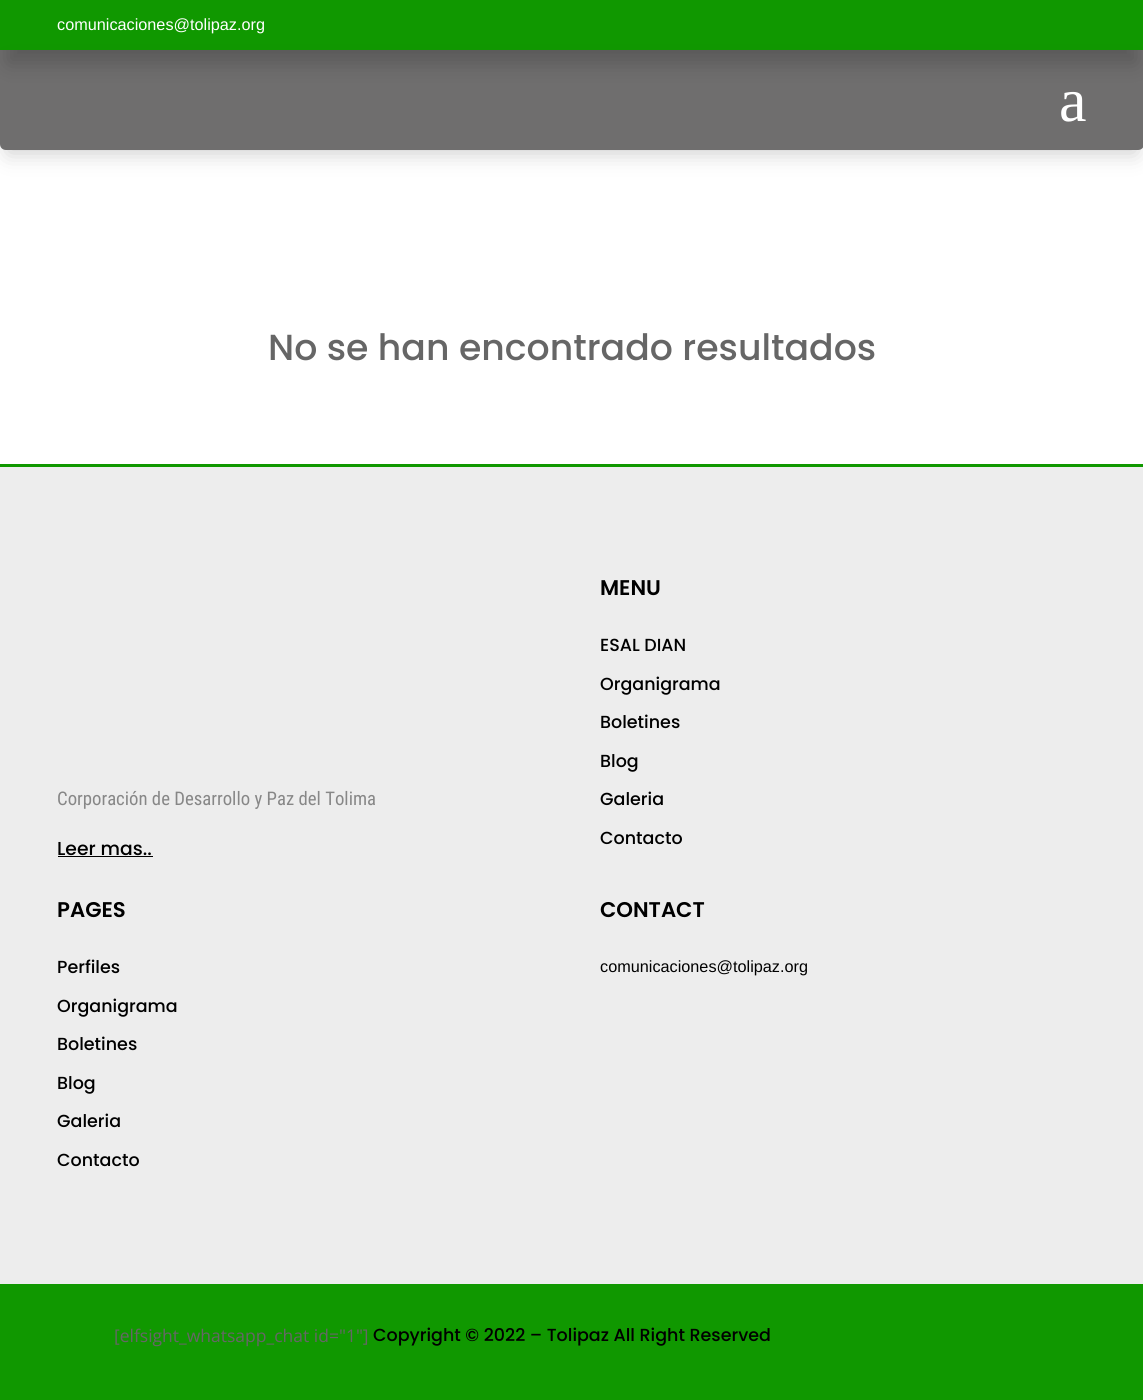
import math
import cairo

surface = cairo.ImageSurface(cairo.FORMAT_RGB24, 1143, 1400)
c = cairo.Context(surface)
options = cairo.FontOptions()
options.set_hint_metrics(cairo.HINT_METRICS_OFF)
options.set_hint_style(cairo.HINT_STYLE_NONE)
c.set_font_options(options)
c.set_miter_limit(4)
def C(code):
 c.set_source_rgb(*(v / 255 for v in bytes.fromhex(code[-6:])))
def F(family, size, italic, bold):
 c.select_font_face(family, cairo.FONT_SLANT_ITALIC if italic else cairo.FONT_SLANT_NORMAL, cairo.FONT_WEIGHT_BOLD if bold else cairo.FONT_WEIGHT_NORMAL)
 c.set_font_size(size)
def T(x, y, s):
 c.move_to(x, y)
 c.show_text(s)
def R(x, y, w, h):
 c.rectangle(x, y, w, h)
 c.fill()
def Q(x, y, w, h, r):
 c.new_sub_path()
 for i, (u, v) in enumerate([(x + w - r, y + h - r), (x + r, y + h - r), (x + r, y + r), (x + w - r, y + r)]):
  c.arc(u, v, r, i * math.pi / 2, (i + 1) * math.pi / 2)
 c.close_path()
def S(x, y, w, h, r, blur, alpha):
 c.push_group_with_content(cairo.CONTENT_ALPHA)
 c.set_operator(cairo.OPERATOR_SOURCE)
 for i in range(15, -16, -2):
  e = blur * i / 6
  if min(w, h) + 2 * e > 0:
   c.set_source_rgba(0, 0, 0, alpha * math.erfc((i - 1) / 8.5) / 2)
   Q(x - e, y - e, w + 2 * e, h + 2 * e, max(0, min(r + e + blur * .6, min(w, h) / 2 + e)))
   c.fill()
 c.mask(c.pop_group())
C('ffffff')
c.paint()
C('000000')
S(8,28,1128,35,0,11,.2)
C('109800')
R(0,0,1143,50)
F('Liberation Sans',16.25,0,0)
C('ffffff')
T(57,30,'comunicaciones@tolipaz.org')
c.save()
c.set_fill_rule(cairo.FILL_RULE_EVEN_ODD)
c.new_path()
c.move_to(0,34)
c.line_to(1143,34)
c.line_to(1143,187)
c.line_to(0,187)
c.close_path()
c.move_to(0,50)
c.line_to(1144,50)
c.line_to(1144,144)
c.curve_to(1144,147.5,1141.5,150,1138,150)
c.line_to(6,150)
c.curve_to(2.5,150,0,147.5,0,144)
c.close_path()
c.clip()
C('000000')
S(8,68,1128,85,0,11,.2)
c.restore()
c.set_source_rgba(0.008,0,0,0.57)
c.new_path()
c.move_to(0,50)
c.line_to(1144,50)
c.line_to(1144,144)
c.curve_to(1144,147.5,1141.5,150,1138,150)
c.line_to(6,150)
c.curve_to(2.5,150,0,147.5,0,144)
c.close_path()
c.fill()
F('Liberation Serif',62,0,0)
C('ffffff')
T(1059,121,'a')
F('Poppins Medium',36.25,0,0)
C('666666')
T(268,360,'No se han encontrado resultados')
C('ededed')
R(0,467,1143,817)
C('109800')
R(0,464,1143,3)
F('Roboto Condensed',18.75,0,0)
C('878787')
T(57,805,'Corporación de Desarrollo y Paz del Tolima')
F('Poppins Medium',18.75,0,0)
C('000000')
T(57,855,'Leer mas..')
R(58,856,95,1)
F('Poppins SemiBold',21.25,0,0)
T(600,595,'MENU')
F('Poppins Medium',17.5,0,0)
T(600,651,'ESAL DIAN')
T(600,690,'Organigrama')
T(600,728,'Boletines')
T(600,767,'Blog')
T(600,805,'Galeria')
T(600,844,'Contacto')
F('Poppins SemiBold',21.25,0,0)
T(57,917,'PAGES')
F('Poppins Medium',17.5,0,0)
T(57,973,'Perfiles')
T(57,1012,'Organigrama')
T(57,1050,'Boletines')
T(57,1089,'Blog')
T(57,1127,'Galeria')
T(57,1166,'Contacto')
F('Poppins SemiBold',21.25,0,0)
T(600,917,'CONTACT')
F('Liberation Sans',16.25,0,0)
T(600,972,'comunicaciones@tolipaz.org')
C('109800')
R(0,1284,1143,116)
F('Open Sans',17.5,0,0)
C('666666')
T(114,1342,'[elfsight_whatsapp_chat id="1"]')
F('Poppins Medium',17.5,0,0)
C('000000')
T(373,1341,'Copyright © 2022 – Tolipaz All Right Reserved')
surface.write_to_png('o.png')
